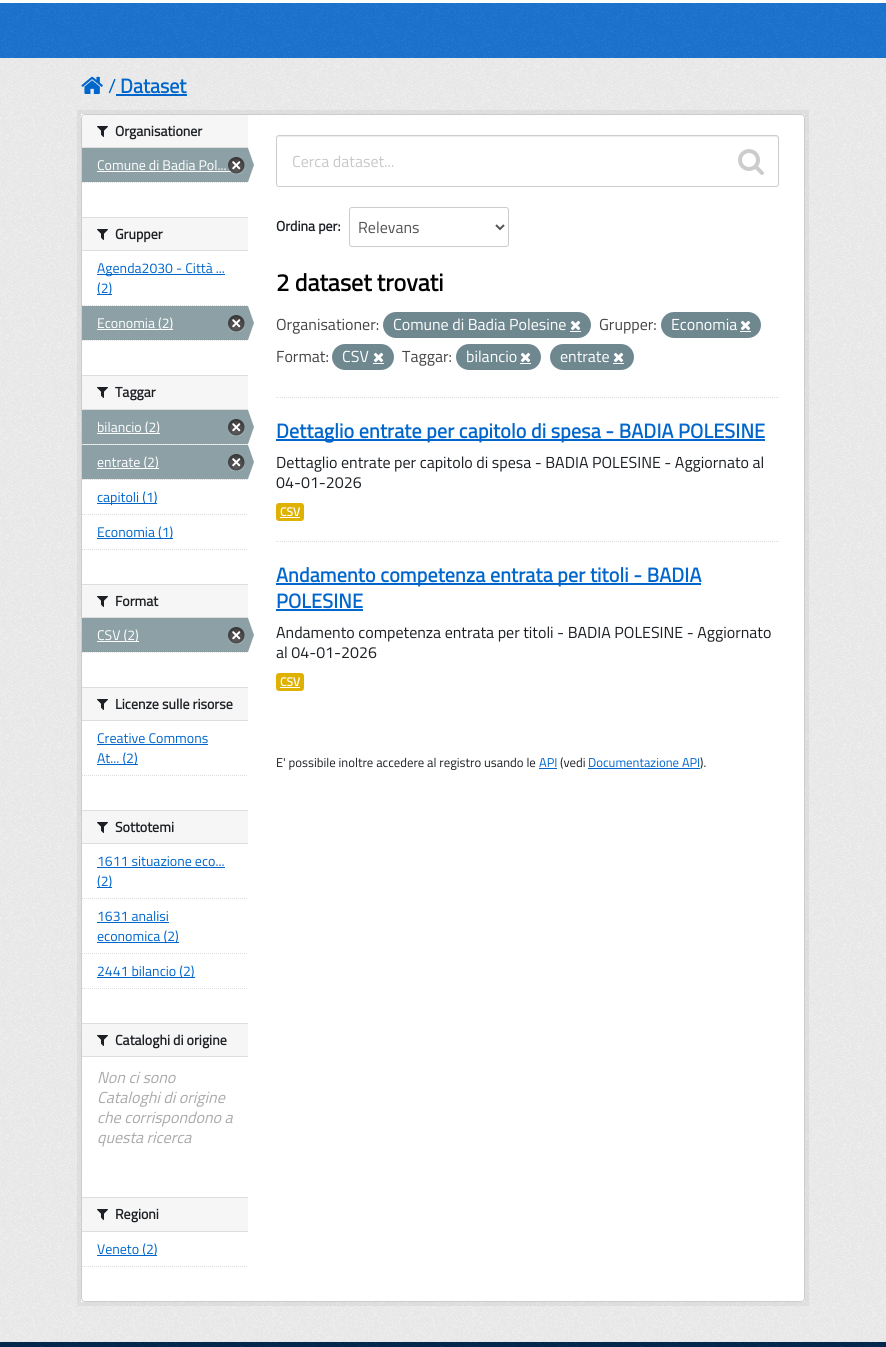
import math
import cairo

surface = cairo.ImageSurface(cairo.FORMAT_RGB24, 886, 1347)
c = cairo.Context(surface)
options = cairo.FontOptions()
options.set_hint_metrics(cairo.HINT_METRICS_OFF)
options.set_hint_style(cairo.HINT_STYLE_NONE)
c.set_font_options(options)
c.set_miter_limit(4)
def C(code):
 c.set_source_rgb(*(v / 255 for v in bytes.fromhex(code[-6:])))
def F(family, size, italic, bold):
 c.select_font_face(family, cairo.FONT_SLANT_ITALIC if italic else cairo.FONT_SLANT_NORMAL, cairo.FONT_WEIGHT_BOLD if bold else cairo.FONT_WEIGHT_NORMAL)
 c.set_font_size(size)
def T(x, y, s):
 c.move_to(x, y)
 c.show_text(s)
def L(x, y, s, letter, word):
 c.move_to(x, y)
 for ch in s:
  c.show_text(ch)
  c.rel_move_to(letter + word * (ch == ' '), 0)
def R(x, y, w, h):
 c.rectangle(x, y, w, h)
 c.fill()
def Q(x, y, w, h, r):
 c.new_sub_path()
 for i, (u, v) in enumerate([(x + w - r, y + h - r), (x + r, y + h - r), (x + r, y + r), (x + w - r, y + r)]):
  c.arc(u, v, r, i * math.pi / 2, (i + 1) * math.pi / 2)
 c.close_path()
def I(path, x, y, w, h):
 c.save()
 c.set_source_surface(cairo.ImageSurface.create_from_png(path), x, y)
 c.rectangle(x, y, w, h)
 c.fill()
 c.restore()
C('ffffff')
c.paint()
C('1c75d1')
R(0,3,886,55)
I('1.png',0,3,886,55)
C('eeeeee')
R(0,58,886,1284)
I('2.png',0,58,886,1284)
I('3.png',81,76,22,18)
F('Titillium Web',20,0,0)
C('0066cc')
T(108,93,'/')
F('Titillium Web',20,0,1)
T(120,93,'Dataset')
R(116,94,71,2)
c.rectangle(79,112,728,1192)
c.set_source_rgba(0,0,0,0.05)
c.set_line_width(4)
c.stroke()
C('ffffff')
Q(81,114,724,1188,4)
c.fill()
R(81,114,3,1188)
Q(81.5,114.5,723,1187,3.5)
C('cccccc')
c.set_line_width(1)
c.stroke()
C('f6f6f6')
c.new_path()
c.move_to(85,115)
c.line_to(248,115)
c.line_to(248,148)
c.line_to(82,148)
c.line_to(82,118)
c.curve_to(82,116.5,83.5,115,85,115)
c.close_path()
c.fill()
C('dddddd')
R(82,147,166,1)
I('4.png',97,126,11,11)
F('Titillium Web',14,0,1)
C('1c2024')
T(115,136,'Organisationer')
C('8ca0a6')
R(82,148,166,34)
F('Titillium Web',14,0,0)
C('ffffff')
T(97,170,'Comune di Badia Pol...')
R(97,171,136,1)
I('5.png',228,157,17,17)
I('6.png',248,148,6,34)
c.new_path()
c.move_to(82,182.5)
c.line_to(248,182.5)
C('dddddd')
c.set_dash([1,1])
c.stroke()
C('f6f6f6')
R(82,218,166,32)
C('dddddd')
R(82,217,166,1)
R(82,250,166,1)
I('4.png',97,229,11,11)
F('Titillium Web',14,0,1)
C('1c2024')
T(115,239,'Grupper')
c.new_path()
c.move_to(82,305.5)
c.line_to(248,305.5)
C('dddddd')
c.stroke()
C('0066cc')
R(97,274,128,1)
F('Titillium Web',14,0,0)
T(97,273,'Agenda2030 - Città ...')
R(97,294,15,1)
T(97,293,'(2)')
C('8ca0a6')
R(82,306,166,34)
C('ffffff')
R(97,329,76,1)
T(97,328,'Economia (2)')
I('7.png',228,315,17,17)
I('6.png',248,306,6,34)
c.new_path()
c.move_to(82,340.5)
c.line_to(248,340.5)
C('dddddd')
c.stroke()
C('f6f6f6')
R(82,376,166,33)
C('dddddd')
R(82,375,166,1)
R(82,409,166,1)
I('4.png',97,387,11,11)
F('Titillium Web',14,0,1)
C('1c2024')
T(115,397,'Taggar')
C('f6f6f6')
R(83,444,165,1)
c.new_path()
c.move_to(82,444.5)
c.line_to(248,444.5)
C('dddddd')
c.stroke()
C('8ca0a6')
R(82,410,166,34)
C('ffffff')
R(97,433,63,1)
F('Titillium Web',14,0,0)
T(97,432,'bilancio (2)')
I('7.png',228,419,17,17)
I('6.png',248,410,6,34)
C('f6f6f6')
R(83,479,165,1)
c.new_path()
c.move_to(82,479.5)
c.line_to(248,479.5)
C('dddddd')
c.stroke()
C('8ca0a6')
R(82,445,166,34)
C('ffffff')
R(97,468,62,1)
T(97,467,'entrate (2)')
I('7.png',228,454,17,17)
I('6.png',248,445,6,34)
c.new_path()
c.move_to(82,514.5)
c.line_to(248,514.5)
C('dddddd')
c.stroke()
C('0066cc')
R(97,503,60,1)
T(97,502,'capitoli (1)')
R(97,538,76,1)
T(97,537,'Economia (1)')
c.new_path()
c.move_to(82,549.5)
c.line_to(248,549.5)
C('dddddd')
c.stroke()
C('f6f6f6')
R(82,585,166,32)
C('dddddd')
R(82,584,166,1)
R(82,617,166,1)
I('4.png',97,596,11,11)
F('Titillium Web',14,0,1)
C('1c2024')
T(115,606,'Format')
C('8ca0a6')
R(82,618,166,34)
C('ffffff')
R(97,641,42,1)
F('Titillium Web',14,0,0)
T(97,640,'CSV (2)')
I('7.png',228,627,17,17)
I('6.png',248,618,6,34)
c.new_path()
c.move_to(82,652.5)
c.line_to(248,652.5)
C('dddddd')
c.stroke()
C('f6f6f6')
R(82,688,166,32)
C('dddddd')
R(82,687,166,1)
R(82,720,166,1)
I('4.png',97,699,11,11)
F('Titillium Web',14,0,1)
C('1c2024')
T(115,709,'Licenze sulle risorse')
F('Titillium Web',14,0,0)
C('0066cc')
T(97,743,'Creative Commons')
R(97,744,111,1)
R(97,764,41,1)
T(97,763,'At... (2)')
c.new_path()
c.move_to(82,775.5)
c.line_to(248,775.5)
C('dddddd')
c.stroke()
C('f6f6f6')
R(82,811,166,32)
C('dddddd')
R(82,810,166,1)
R(82,843,166,1)
I('4.png',97,822,11,11)
F('Titillium Web',14,0,1)
C('1c2024')
T(115,832,'Sottotemi')
c.new_path()
c.move_to(82,898.5)
c.line_to(248,898.5)
C('dddddd')
c.stroke()
F('Titillium Web',14,0,0)
C('0066cc')
T(97,866,'1611 situazione eco...')
R(97,867,128,1)
R(97,887,15,1)
T(97,886,'(2)')
c.new_path()
c.move_to(82,953.5)
c.line_to(248,953.5)
C('dddddd')
c.stroke()
C('0066cc')
T(97,921,'1631 analisi')
R(97,922,72,1)
R(97,942,82,1)
T(97,941,'economica (2)')
R(97,977,98,1)
T(97,976,'2441 bilancio (2)')
c.new_path()
c.move_to(82,988.5)
c.line_to(248,988.5)
C('dddddd')
c.stroke()
C('f6f6f6')
R(82,1024,166,32)
C('dddddd')
R(82,1023,166,1)
R(82,1056,166,1)
I('4.png',97,1035,11,11)
F('Titillium Web',14,0,1)
C('1c2024')
T(115,1045,'Cataloghi di origine')
F('Titillium Web',16,1,0)
C('aaaaaa')
T(97,1083,'Non ci sono')
T(97,1103,'Cataloghi di origine')
T(97,1123,'che corrispondono a')
T(97,1143,'questa ricerca')
C('f6f6f6')
R(82,1198,166,33)
C('dddddd')
R(82,1197,166,1)
R(82,1231,166,1)
I('4.png',97,1209,11,11)
F('Titillium Web',14,0,1)
C('1c2024')
T(115,1219,'Regioni')
C('0066cc')
R(97,1255,60,1)
F('Titillium Web',14,0,0)
T(97,1254,'Veneto (2)')
c.new_path()
c.move_to(82,1266.5)
c.line_to(248,1266.5)
C('dddddd')
c.stroke()
c.new_path()
c.move_to(276,397.5)
c.line_to(779,397.5)
c.stroke()
C('ececec')
c.new_path()
c.move_to(279,137)
c.line_to(776,137)
c.curve_to(777,137,778,138,778,139)
c.curve_to(778,138,778,136,776,136)
c.line_to(279,136)
c.line_to(277,137)
c.line_to(277,139)
c.curve_to(277,138,278,137,279,137)
c.close_path()
c.fill()
Q(276.5,135.5,502,51,2.5)
C('cccccc')
c.set_dash([])
c.stroke()
F('Titillium Web',16,0,0)
C('c8c8c8')
T(292,167,'Cerca dataset...')
I('8.png',738,149,26,26)
F('Titillium Web',14,0,1)
C('1c2024')
T(276,231,'Ordina per:')
Q(349.5,207.5,159,39,2.5)
C('cccccc')
c.stroke()
c.new_path()
c.move_to(496,225)
c.line_to(500,229)
c.line_to(504,225)
C('555555')
c.set_line_width(2)
c.stroke()
F('Titillium Web',16,0,0)
T(358,233,'Relevans')
F('Titillium Web',24,0,1)
C('000000')
T(276,291,'2 dataset trovati')
F('Titillium Web',16,0,0)
C('444444')
T(276,330,'Organisationer:')
C('6f8890')
Q(383,312,208,26,13)
c.fill()
C('ffffff')
T(393,330,'Comune di Badia Polesine')
R(570,331,11,1)
I('9.png',570,320,11,11)
C('444444')
T(599,330,'Grupper:')
C('6f8890')
Q(661,312,100,26,13)
c.fill()
C('ffffff')
T(671,330,'Economia')
R(740,331,11,1)
I('9.png',740,320,11,11)
C('444444')
T(276,362,'Format:')
C('6f8890')
Q(332,344,62,26,13)
c.fill()
C('ffffff')
T(342,362,'CSV')
R(373,363,11,1)
I('9.png',373,352,11,11)
C('444444')
T(402,362,'Taggar:')
C('6f8890')
Q(456,344,85,26,13)
c.fill()
C('ffffff')
T(466,362,'bilancio')
R(520,363,11,1)
I('9.png',520,352,11,11)
C('6f8890')
Q(550,344,84,26,13)
c.fill()
C('ffffff')
T(560,362,'entrate')
R(613,363,11,1)
I('9.png',613,352,11,11)
c.new_path()
c.move_to(276,541.5)
c.line_to(779,541.5)
C('dddddd')
c.set_line_width(1)
c.set_dash([1,1])
c.stroke()
C('0066cc')
R(276,439,489,2)
F('Titillium Web',20,0,1)
L(276,438,'Dettaglio entrate per capitolo di spesa - BADIA POLESINE',.15,0)
F('Titillium Web',16,0,0)
C('1c2024')
T(276,468,'Dettaglio entrate per capitolo di spesa - BADIA POLESINE - Aggiornato al')
T(276,488,'04-01-2026')
C('dfb100')
Q(276,503,28,18,3)
c.fill()
F('Titillium Web',12,0,1)
C('ffffff')
T(280,516,'CSV')
R(280,517,20,1)
C('0066cc')
R(276,583,425,2)
F('Titillium Web',20,0,1)
L(276,582,'Andamento competenza entrata per titoli - BADIA',.15,0)
L(276,608,'POLESINE',.15,0)
R(276,609,87,2)
F('Titillium Web',16,0,0)
C('1c2024')
T(276,638,'Andamento competenza entrata per titoli - BADIA POLESINE - Aggiornato')
T(276,658,'al 04-01-2026')
C('dfb100')
Q(276,673,28,18,3)
c.fill()
F('Titillium Web',12,0,1)
C('ffffff')
T(280,686,'CSV')
R(280,687,20,1)
F('Titillium Web',12.8,0,0)
C('1c2024')
T(276,767,'E\' possibile inoltre accedere al registro usando le')
C('0066cc')
T(539,767,'API')
R(539,768,18,1)
C('1c2024')
T(560,767,'(vedi')
C('0066cc')
T(588,767,'Documentazione API')
R(588,768,112,1)
C('1c2024')
T(700,767,').')
C('02274c')
R(0,1342,886,5)
I('10.png',0,1342,886,5)
surface.write_to_png('o.png')
